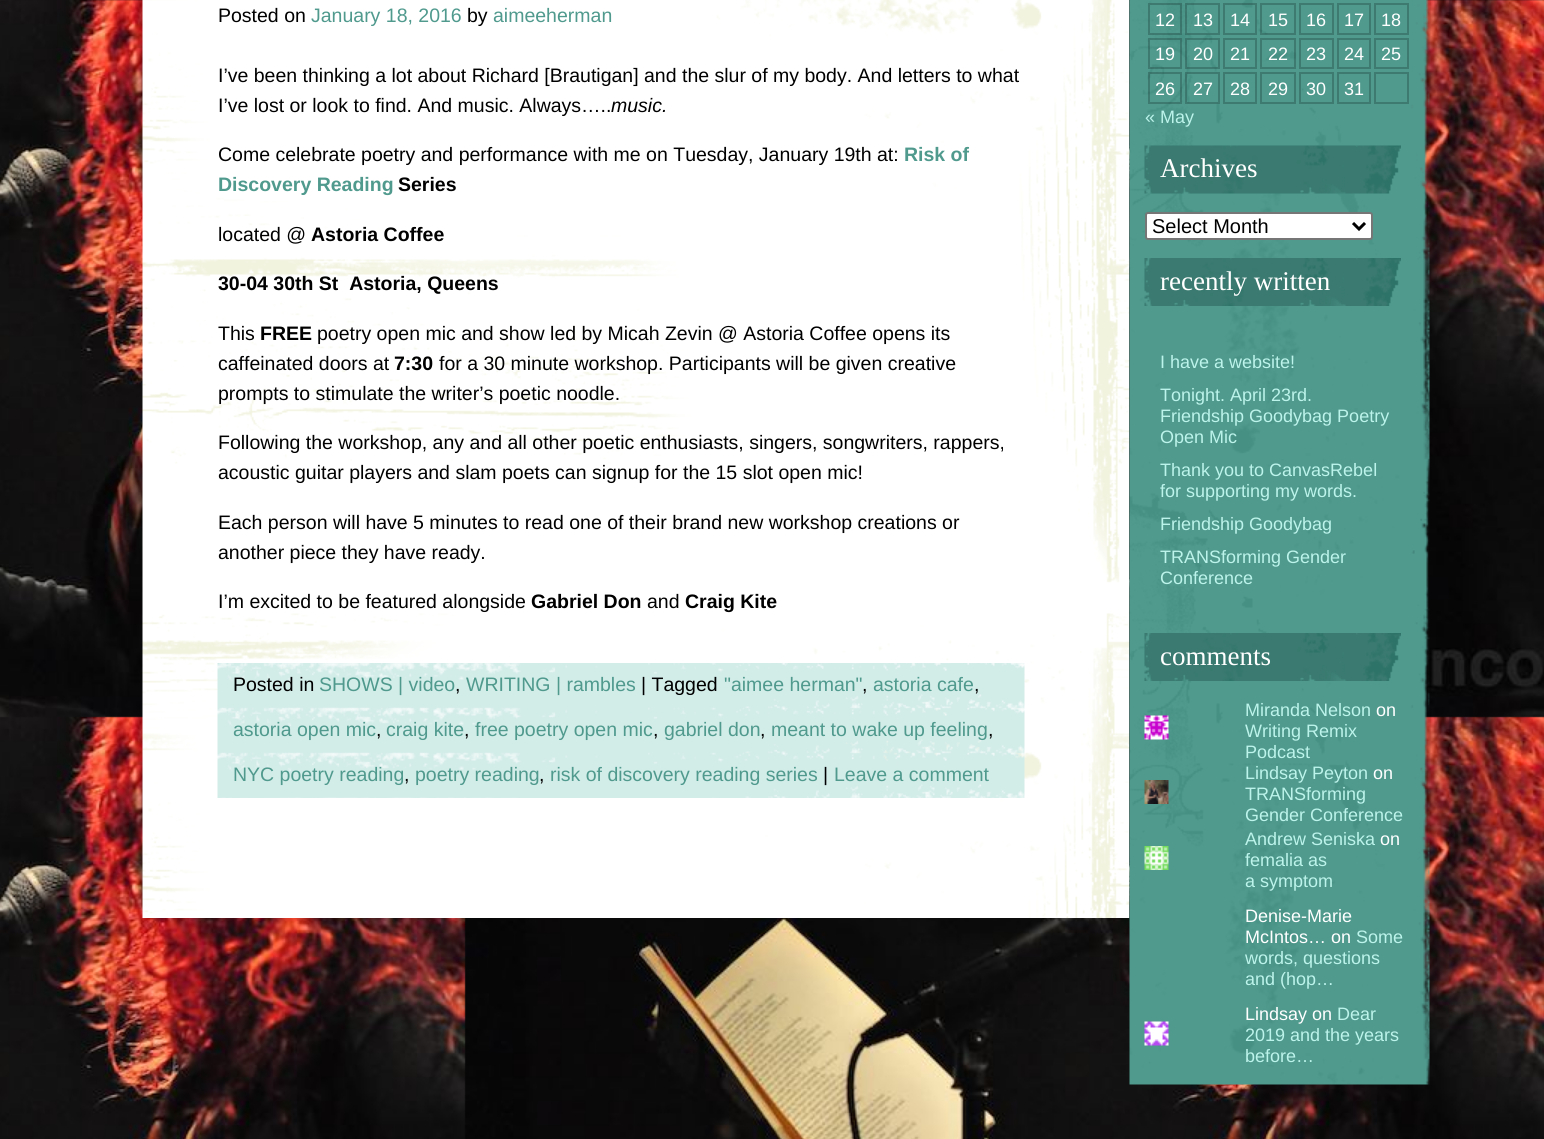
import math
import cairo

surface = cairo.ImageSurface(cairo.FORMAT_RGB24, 1544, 1139)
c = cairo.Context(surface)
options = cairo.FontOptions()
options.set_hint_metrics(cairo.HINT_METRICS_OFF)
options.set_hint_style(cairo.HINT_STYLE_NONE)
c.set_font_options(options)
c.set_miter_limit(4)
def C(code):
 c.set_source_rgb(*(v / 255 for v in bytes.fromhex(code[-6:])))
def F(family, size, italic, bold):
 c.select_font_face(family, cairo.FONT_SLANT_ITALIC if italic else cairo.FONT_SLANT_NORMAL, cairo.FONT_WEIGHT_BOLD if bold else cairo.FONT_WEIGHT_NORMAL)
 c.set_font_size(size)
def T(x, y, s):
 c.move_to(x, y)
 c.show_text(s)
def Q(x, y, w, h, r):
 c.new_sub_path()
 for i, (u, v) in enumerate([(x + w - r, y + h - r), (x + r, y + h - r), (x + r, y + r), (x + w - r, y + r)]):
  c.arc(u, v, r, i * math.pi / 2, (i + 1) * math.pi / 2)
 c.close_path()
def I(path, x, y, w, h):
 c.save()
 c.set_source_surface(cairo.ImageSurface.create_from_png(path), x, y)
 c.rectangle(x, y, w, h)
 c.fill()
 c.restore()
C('ffffff')
c.paint()
I('1.png',0,0,1544,1139)
I('2.png',142,0,988,918)
F('Liberation Sans',19.5,0,0)
C('000000')
T(218,22,'Posted on')
C('4f998d')
T(311,22,'January 18, 2016')
C('000000')
T(467,22,'by')
C('4f998d')
T(493,22,'aimeeherman')
C('000000')
T(218,82,'I’ve been thinking a lot about Richard [Brautigan] and the slur of my body. And letters to what')
T(218,112,'I’ve lost or look to find. And music. Always…..')
F('Liberation Sans',19.5,1,0)
T(611,112,'music.')
F('Liberation Sans',19.5,0,0)
T(218,161,'Come celebrate poetry and performance with me on Tuesday, January 19th at:')
F('Liberation Sans',19.5,0,1)
C('4f998d')
T(904,161,'Risk of')
T(218,191,'Discovery Reading')
C('000000')
T(398,191,'Series')
F('Liberation Sans',19.5,0,0)
T(218,241,'located @')
F('Liberation Sans',19.5,0,1)
T(311,241,'Astoria Coffee')
T(218,290,'30-04 30th St  Astoria, Queens')
F('Liberation Sans',19.5,0,0)
T(218,340,'This')
F('Liberation Sans',19.5,0,1)
T(260,340,'FREE')
F('Liberation Sans',19.5,0,0)
T(317,340,'poetry open mic and show led by Micah Zevin @ Astoria Coffee opens its')
T(218,370,'caffeinated doors at')
F('Liberation Sans',19.5,0,1)
T(394,370,'7:30')
F('Liberation Sans',19.5,0,0)
T(439,370,'for a 30 minute workshop. Participants will be given creative')
T(218,400,'prompts to stimulate the writer’s poetic noodle.')
T(218,449,'Following the workshop, any and all other poetic enthusiasts, singers, songwriters, rappers,')
T(218,479,'acoustic guitar players and slam poets can signup for the 15 slot open mic!')
T(218,529,'Each person will have 5 minutes to read one of their brand new workshop creations or')
T(218,559,'another piece they have ready.')
T(218,608,'I’m excited to be featured alongside')
F('Liberation Sans',19.5,0,1)
T(531,608,'Gabriel Don')
F('Liberation Sans',19.5,0,0)
T(647,608,'and')
F('Liberation Sans',19.5,0,1)
T(685,608,'Craig Kite')
I('3.png',217,663,808,135)
F('Liberation Sans',19.5,0,0)
T(233,691,'Posted in')
C('4f998d')
T(319,691,'SHOWS | video')
C('000000')
T(455,691,',')
C('4f998d')
T(466,691,'WRITING | rambles')
C('000000')
T(641,691,'| Tagged')
C('4f998d')
T(724,691,'"aimee herman"')
C('000000')
T(862,691,',')
C('4f998d')
T(873,691,'astoria cafe')
C('000000')
T(974,691,',')
C('4f998d')
T(233,736,'astoria open mic')
C('000000')
T(376,736,',')
C('4f998d')
T(386,736,'craig kite')
C('000000')
T(464,736,',')
C('4f998d')
T(475,736,'free poetry open mic')
C('000000')
T(653,736,',')
C('4f998d')
T(664,736,'gabriel don')
C('000000')
T(760,736,',')
C('4f998d')
T(771,736,'meant to wake up feeling')
C('000000')
T(988,736,',')
C('4f998d')
T(233,781,'NYC poetry reading')
C('000000')
T(404,781,',')
C('4f998d')
T(415,781,'poetry reading')
C('000000')
T(539,781,',')
C('4f998d')
T(550,781,'risk of discovery reading series')
C('000000')
T(823,781,'|')
C('4f998d')
T(834,781,'Leave a comment')
I('4.png',1129,0,301,1085)
c.rectangle(1149,4,32,30)
c.set_source_rgba(0,0,0,0.2)
c.stroke()
F('Liberation Sans',18,0,0)
C('ffffff')
T(1155,26,'12')
c.rectangle(1186,4,33,30)
c.set_source_rgba(0,0,0,0.2)
c.stroke()
C('ffffff')
T(1193,26,'13')
c.rectangle(1224,4,32,30)
c.set_source_rgba(0,0,0,0.2)
c.stroke()
C('ffffff')
T(1230,26,'14')
c.rectangle(1261,4,34,30)
c.set_source_rgba(0,0,0,0.2)
c.stroke()
C('ffffff')
T(1268,26,'15')
c.rectangle(1300,4,33,30)
C('3f7a71')
c.stroke()
C('ffffff')
T(1306,26,'16')
c.rectangle(1338,4,32,30)
C('3f7a71')
c.stroke()
C('ffffff')
T(1344,26,'17')
c.rectangle(1375,4,33,30)
C('3f7a71')
c.stroke()
C('ffffff')
T(1381,26,'18')
c.rectangle(1149,39,32,29)
c.set_source_rgba(0,0,0,0.2)
c.stroke()
C('ffffff')
T(1155,60,'19')
c.rectangle(1186,39,33,29)
c.set_source_rgba(0,0,0,0.2)
c.stroke()
C('ffffff')
T(1193,60,'20')
c.rectangle(1224,39,32,29)
C('3f7a71')
c.stroke()
C('ffffff')
T(1230,60,'21')
c.rectangle(1261,39,34,29)
c.set_source_rgba(0,0,0,0.2)
c.stroke()
C('ffffff')
T(1268,60,'22')
c.rectangle(1300,39,33,29)
C('3f7a71')
c.stroke()
C('ffffff')
T(1306,60,'23')
c.rectangle(1338,39,32,29)
C('3f7a71')
c.stroke()
C('ffffff')
T(1344,60,'24')
c.rectangle(1375,39,33,29)
C('3f7a71')
c.stroke()
C('ffffff')
T(1381,60,'25')
c.rectangle(1149,73,32,30)
c.set_source_rgba(0,0,0,0.2)
c.stroke()
C('ffffff')
T(1155,95,'26')
c.rectangle(1186,73,33,30)
c.set_source_rgba(0,0,0,0.2)
c.stroke()
C('ffffff')
T(1193,95,'27')
c.rectangle(1224,73,32,30)
C('3f7a71')
c.stroke()
C('ffffff')
T(1230,95,'28')
c.rectangle(1261,73,34,30)
C('3f7a71')
c.stroke()
C('ffffff')
T(1268,95,'29')
c.rectangle(1300,73,33,30)
C('3f7a71')
c.stroke()
C('ffffff')
T(1306,95,'30')
c.rectangle(1338,73,32,30)
C('3f7a71')
c.stroke()
C('ffffff')
T(1344,95,'31')
c.rectangle(1375,73,33,30)
C('3f7a71')
c.stroke()
C('bcf3ea')
T(1145,123,'« May')
I('5.png',1144,145,257,49)
F('Liberation Serif',27,0,0)
C('ffffff')
T(1160,177,'Archives')
Q(1146,213,226,26,2)
c.fill_preserve()
C('767676')
c.stroke()
c.new_path()
c.move_to(1353,223)
c.line_to(1359,229)
c.line_to(1365,223)
C('000000')
c.set_line_width(3)
c.stroke()
F('Liberation Sans',20,0,0)
T(1152,233,'Select Month')
I('6.png',1144,258,257,48)
F('Liberation Serif',27,0,0)
C('ffffff')
T(1160,290,'recently written')
F('Liberation Sans',18,0,0)
C('bcf3ea')
T(1160,368,'I have a website!')
T(1160,401,'Tonight. April 23rd.')
T(1160,422,'Friendship Goodybag Poetry')
T(1160,443,'Open Mic')
T(1160,476,'Thank you to CanvasRebel')
T(1160,497,'for supporting my words.')
T(1160,530,'Friendship Goodybag')
T(1160,563,'TRANSforming Gender')
T(1160,584,'Conference')
I('7.png',1144,633,257,48)
F('Liberation Serif',27,0,0)
C('ffffff')
T(1160,665,'comments')
I('8.png',1144,715,25,25)
F('Liberation Sans',18,0,0)
C('bcf3ea')
T(1245,716,'Miranda Nelson')
C('ffffff')
T(1376,716,'on')
C('bcf3ea')
T(1245,737,'Writing Remix')
T(1245,758,'Podcast')
I('9.png',1144,780,25,24)
T(1245,779,'Lindsay Peyton')
C('ffffff')
T(1373,779,'on')
C('bcf3ea')
T(1245,800,'TRANSforming')
T(1245,821,'Gender Conference')
I('10.png',1144,846,25,24)
T(1245,845,'Andrew Seniska')
C('ffffff')
T(1380,845,'on')
C('bcf3ea')
T(1245,866,'femalia as')
T(1245,887,'a symptom')
C('ffffff')
T(1245,922,'Denise-Marie')
T(1245,943,'McIntos… on')
C('bcf3ea')
T(1356,943,'Some')
T(1245,964,'words, questions')
T(1245,985,'and (hop…')
I('11.png',1144,1021,25,25)
C('ffffff')
T(1245,1020,'Lindsay on')
C('bcf3ea')
T(1337,1020,'Dear')
T(1245,1041,'2019 and the years')
T(1245,1062,'before…')
surface.write_to_png('o.png')
